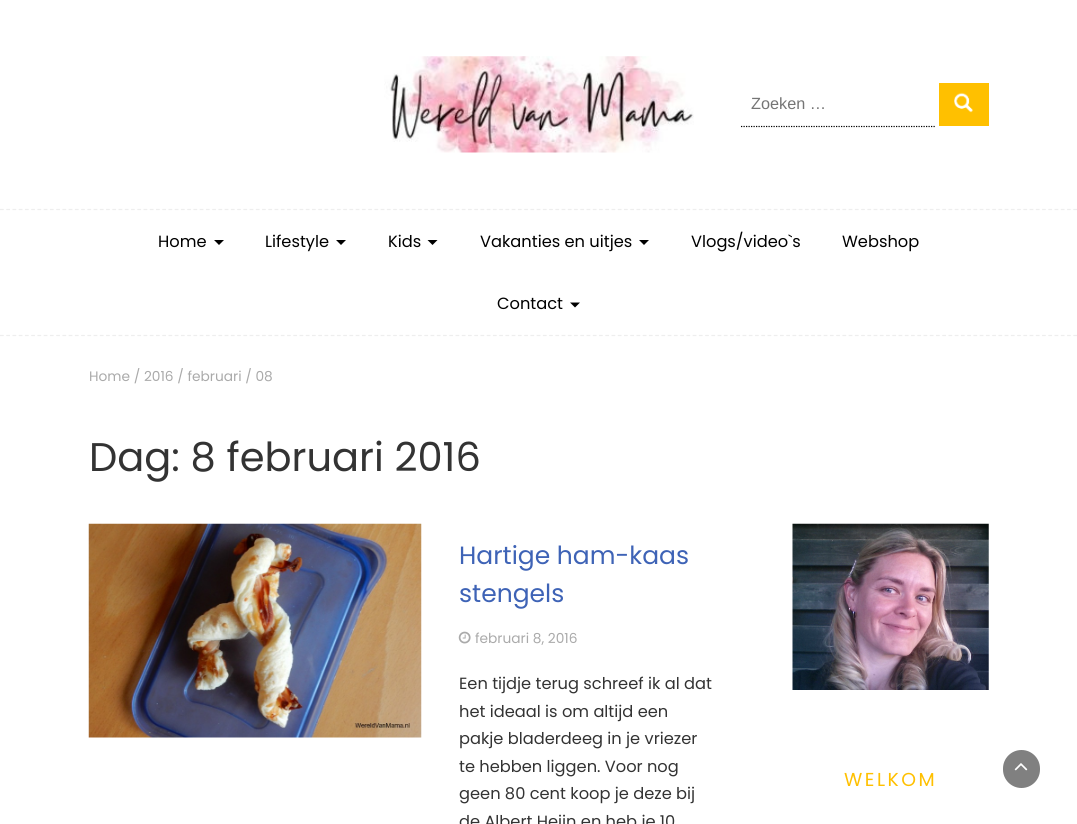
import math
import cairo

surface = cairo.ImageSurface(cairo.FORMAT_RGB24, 1077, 824)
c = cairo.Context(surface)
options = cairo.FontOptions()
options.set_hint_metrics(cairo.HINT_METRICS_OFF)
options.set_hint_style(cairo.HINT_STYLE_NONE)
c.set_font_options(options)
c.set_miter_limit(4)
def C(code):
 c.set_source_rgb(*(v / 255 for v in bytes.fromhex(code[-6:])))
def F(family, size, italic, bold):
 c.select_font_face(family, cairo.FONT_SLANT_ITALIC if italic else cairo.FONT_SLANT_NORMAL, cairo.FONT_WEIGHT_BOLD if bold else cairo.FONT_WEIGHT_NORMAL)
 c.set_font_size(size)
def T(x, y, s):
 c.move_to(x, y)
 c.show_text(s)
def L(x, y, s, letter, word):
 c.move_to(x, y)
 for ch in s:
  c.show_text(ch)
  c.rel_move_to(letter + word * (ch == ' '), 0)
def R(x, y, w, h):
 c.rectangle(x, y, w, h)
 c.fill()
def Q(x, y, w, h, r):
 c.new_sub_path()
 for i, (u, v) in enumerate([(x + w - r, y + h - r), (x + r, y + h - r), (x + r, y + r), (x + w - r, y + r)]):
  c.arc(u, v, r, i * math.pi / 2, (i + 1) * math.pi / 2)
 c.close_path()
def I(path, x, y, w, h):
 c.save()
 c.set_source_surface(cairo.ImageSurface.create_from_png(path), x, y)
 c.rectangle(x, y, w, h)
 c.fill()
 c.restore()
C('ffffff')
c.paint()
I('1.png',384,56,310,97)
c.new_path()
c.move_to(741,126.5)
c.line_to(936,126.5)
C('000000')
c.set_line_width(1.2)
c.set_dash([1.25,1.25])
c.stroke()
F('Liberation Sans',16.25,0,0)
C('757575')
T(751,109,'Zoeken …')
C('ffc000')
R(939,83,50,43)
I('2.png',954,92,19,21)
c.new_path()
c.move_to(0,209.5)
c.line_to(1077.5,209.5)
C('eeeeee')
c.set_dash([3.75,2.49])
c.stroke()
c.new_path()
c.move_to(0,335.5)
c.line_to(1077.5,335.5)
c.stroke()
F('Poppins',16.25,0,0)
C('000000')
T(158,247,'Home')
c.new_path()
c.move_to(214,240)
c.line_to(224,240)
c.line_to(219,245)
c.close_path()
c.fill()
T(265,247,'Lifestyle')
c.new_path()
c.move_to(336,240)
c.line_to(346,240)
c.line_to(341,245)
c.close_path()
c.fill()
T(388,247,'Kids')
c.new_path()
c.move_to(427.5,240)
c.line_to(437.5,240)
c.line_to(432.5,245)
c.close_path()
c.fill()
T(480,247,'Vakanties en uitjes')
c.new_path()
c.move_to(639,240)
c.line_to(649,240)
c.line_to(644,245)
c.close_path()
c.fill()
T(691,247,'Vlogs/video`s')
T(842,247,'Webshop')
T(497,309,'Contact')
c.new_path()
c.move_to(570,302.5)
c.line_to(580,302.5)
c.line_to(575,307.5)
c.close_path()
c.fill()
F('Poppins',13.75,0,0)
C('aaaaaa')
T(89,381,'Home / 2016 / februari / 08')
F('Poppins',40,0,0)
C('333333')
T(89,471,'Dag: 8 februari 2016')
I('3.png',88,523,334,215)
F('Poppins',25,0,0)
C('3e63b6')
T(459,564,'Hartige ham-kaas')
T(459,602,'stengels')
I('4.png',458,631,13,13)
F('Poppins',13.75,0,0)
C('aaaaaa')
T(475,643,'februari 8, 2016')
F('Poppins',16.25,0,0)
C('333333')
T(459,689,'Een tijdje terug schreef ik al dat')
T(459,717,'het ideaal is om altijd een')
T(459,744,'pakje bladerdeeg in je vriezer')
T(459,772,'te hebben liggen. Voor nog')
T(459,799,'geen 80 cent koop je deze bij')
T(459,827,'de Albert Heijn en heb je 10')
I('5.png',792,523,197,167)
F('Poppins',18.75,0,0)
C('ffc000')
L(844,786,'WELKOM',2.5,0)
C('808080')
Q(1003,750,37,38,18.5)
c.fill()
I('6.png',1014,763,14,8)
surface.write_to_png('o.png')
